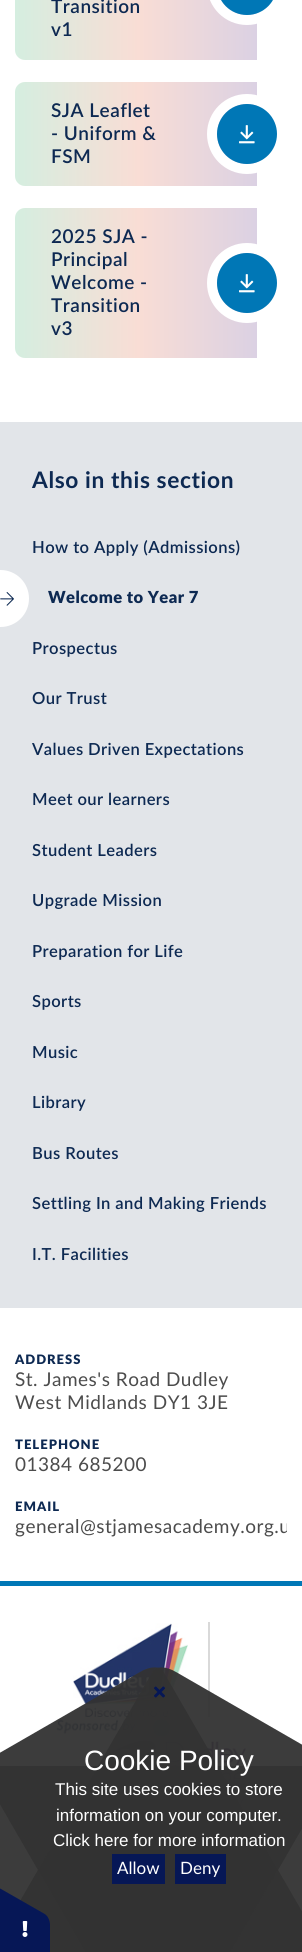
import math
import cairo

surface = cairo.ImageSurface(cairo.FORMAT_RGB24, 302, 1952)
c = cairo.Context(surface)
options = cairo.FontOptions()
options.set_hint_metrics(cairo.HINT_METRICS_OFF)
options.set_hint_style(cairo.HINT_STYLE_NONE)
c.set_font_options(options)
c.set_miter_limit(4)
def C(code):
 c.set_source_rgb(*(v / 255 for v in bytes.fromhex(code[-6:])))
def F(family, size, italic, bold):
 c.select_font_face(family, cairo.FONT_SLANT_ITALIC if italic else cairo.FONT_SLANT_NORMAL, cairo.FONT_WEIGHT_BOLD if bold else cairo.FONT_WEIGHT_NORMAL)
 c.set_font_size(size)
def T(x, y, s):
 c.move_to(x, y)
 c.show_text(s)
def L(x, y, s, letter, word):
 c.move_to(x, y)
 for ch in s:
  c.show_text(ch)
  c.rel_move_to(letter + word * (ch == ' '), 0)
def R(x, y, w, h):
 c.rectangle(x, y, w, h)
 c.fill()
def Q(x, y, w, h, r):
 c.new_sub_path()
 for i, (u, v) in enumerate([(x + w - r, y + h - r), (x + r, y + h - r), (x + r, y + r), (x + w - r, y + r)]):
  c.arc(u, v, r, i * math.pi / 2, (i + 1) * math.pi / 2)
 c.close_path()
def I(path, x, y, w, h):
 c.save()
 c.set_source_surface(cairo.ImageSurface.create_from_png(path), x, y)
 c.rectangle(x, y, w, h)
 c.fill()
 c.restore()
C('ffffff')
c.paint()
gradient = cairo.LinearGradient(15,-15,257,-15)
gradient.add_color_stop_rgba(0,0.835,0.933,0.878,1)
gradient.add_color_stop_rgba(.51,0.976,0.867,0.835,1)
gradient.add_color_stop_rgba(1,0.859,0.82,0.89,1)
c.set_source(gradient)
c.new_path()
c.move_to(25,-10)
c.line_to(257,-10)
c.line_to(257,60)
c.line_to(25,60)
c.curve_to(19.5,60,15,55.5,15,50)
c.line_to(15,0)
c.curve_to(15,-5.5,19.5,-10,25,-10)
c.close_path()
c.fill()
F('Lato SemiBold',19,0,0)
C('0d2952')
L(51,13,'Transition',.5,0)
L(51,36,'v1',.5,0)
Q(212,-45,70,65,35)
C('ffffff')
c.set_line_width(10)
c.stroke()
C('0077b6')
Q(217,-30,60,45,30)
c.fill()
gradient = cairo.LinearGradient(15,134,257,134)
gradient.add_color_stop_rgba(0,0.835,0.933,0.878,1)
gradient.add_color_stop_rgba(.51,0.976,0.867,0.835,1)
gradient.add_color_stop_rgba(1,0.859,0.82,0.89,1)
c.set_source(gradient)
c.new_path()
c.move_to(25,82)
c.line_to(257,82)
c.line_to(257,186)
c.line_to(25,186)
c.curve_to(19.5,186,15,181.5,15,176)
c.line_to(15,92)
c.curve_to(15,86.5,19.5,82,25,82)
c.close_path()
c.fill()
C('0d2952')
L(51,117,'SJA Leaflet',.5,0)
L(51,140,'- Uniform &',.5,0)
L(51,163,'FSM',.5,0)
c.new_path()
c.arc(247,134,35,0,2 * math.pi)
C('ffffff')
c.stroke()
C('0077b6')
c.arc(247,134,30,0,2 * math.pi)
c.fill()
I('1.png',239,125,16,19)
gradient = cairo.LinearGradient(15,283,257,283)
gradient.add_color_stop_rgba(0,0.835,0.933,0.878,1)
gradient.add_color_stop_rgba(.51,0.976,0.867,0.835,1)
gradient.add_color_stop_rgba(1,0.859,0.82,0.89,1)
c.set_source(gradient)
c.new_path()
c.move_to(25,208)
c.line_to(257,208)
c.line_to(257,358)
c.line_to(25,358)
c.curve_to(19.5,358,15,353.5,15,348)
c.line_to(15,218)
c.curve_to(15,212.5,19.5,208,25,208)
c.close_path()
c.fill()
C('0d2952')
L(51,243,'2025 SJA -',.5,0)
L(51,266,'Principal',.5,0)
L(51,289,'Welcome -',.5,0)
L(51,312,'Transition',.5,0)
L(51,335,'v3',.5,0)
c.new_path()
c.arc(247,283,35,0,2 * math.pi)
C('ffffff')
c.stroke()
C('0077b6')
c.arc(247,283,30,0,2 * math.pi)
c.fill()
I('1.png',239,274,16,19)
C('e2e5e9')
R(0,422,302,886)
F('Lato',22.75,0,1)
C('0d2952')
L(32,488,'Also in this section',.6,0)
F('Lato SemiBold',16.6,0,0)
L(32,553,'How to Apply (Admissions)',.4,0)
C('ffffff')
c.new_path()
c.arc(.5,598.5,28.5,0,2 * math.pi)
c.fill()
I('2.png',0,592,14,14)
F('Lato Black',16.6,0,0)
C('0d2952')
L(48,603,'Welcome to Year 7',.4,0)
F('Lato SemiBold',16.6,0,0)
L(32,654,'Prospectus',.4,0)
L(32,704,'Our Trust',.4,0)
L(32,755,'Values Driven Expectations',.4,0)
L(32,805,'Meet our learners',.4,0)
L(32,856,'Student Leaders',.4,0)
L(32,906,'Upgrade Mission',.4,0)
L(32,957,'Preparation for Life',.4,0)
L(32,1007,'Sports',.4,0)
L(32,1058,'Music',.4,0)
L(32,1108,'Library',.4,0)
L(32,1159,'Bus Routes',.4,0)
L(32,1209,'Settling In and Making Friends',.4,0)
L(32,1260,'I.T. Facilities',.4,0)
F('Lato Black',13,0,0)
L(15,1364,'ADDRESS',1,0)
F('Lato',19,0,0)
C('4c4c4c')
L(15,1386,'St. James\'s Road Dudley',.5,0)
L(15,1409,'West Midlands DY1 3JE',.5,0)
F('Lato Black',13,0,0)
C('0d2952')
L(15,1449,'TELEPHONE',1,0)
F('Lato',19,0,0)
C('4c4c4c')
L(15,1471,'01384 685200',.5,0)
F('Lato Black',13,0,0)
C('0d2952')
L(15,1511,'EMAIL',1,0)
c.save()
c.rectangle(15,1340,272,209)
c.clip()
F('Lato',19,0,0)
C('4c4c4c')
L(15,1533,'general@stjamesacademy.org.u',.5,0)
c.restore()
C('0077b6')
R(0,1581,302,5)
C('d9d9d9')
R(208,1622,2,95)
I('3.png',73,1623,115,94)
I('4.png',56,1718,190,94)
c.set_source_rgba(0.2,0.2,0.2,0.95)
c.new_path()
c.move_to(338,1786)
c.line_to(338,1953)
c.curve_to(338,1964,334,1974,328,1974)
c.line_to(-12,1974)
c.curve_to(-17,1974,-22,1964,-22,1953)
c.line_to(-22,1786)
c.curve_to(-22,1775,-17,1766,-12,1766)
c.line_to(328,1766)
c.curve_to(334,1766,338,1775,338,1786)
c.close_path()
c.fill()
c.new_path()
c.move_to(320,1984)
c.line_to(176,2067)
c.curve_to(166,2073,156,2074,153,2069)
c.line_to(-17,1775)
c.curve_to(-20,1770,-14,1761,-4,1755)
c.line_to(140,1672)
c.curve_to(150,1666,160,1666,163,1671)
c.line_to(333,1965)
c.curve_to(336,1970,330,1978,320,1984)
c.close_path()
c.fill()
c.new_path()
c.move_to(176,1672)
c.line_to(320,1755)
c.curve_to(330,1761,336,1770,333,1775)
c.line_to(163,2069)
c.curve_to(160,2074,150,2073,140,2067)
c.line_to(-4,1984)
c.curve_to(-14,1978,-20,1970,-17,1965)
c.line_to(153,1671)
c.curve_to(156,1666,166,1666,176,1672)
c.close_path()
c.fill()
I('5.png',154,1686,11,12)
F('Liberation Sans',28,0,0)
C('ffffff')
T(84,1770,'Cookie Policy')
F('Liberation Sans',17,0,0)
T(55,1795,'This site uses cookies to store')
T(56,1821,'information on your computer.')
T(53,1846,'Click here for more information')
C('061756')
R(112,1854,53,30)
F('Lato',17,0,0)
C('ffffff')
T(117,1874,'Allow')
C('061756')
R(175,1854,51,30)
C('ffffff')
T(180,1874,'Deny')
C('061756')
c.new_path()
c.move_to(50,1925)
c.line_to(50,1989)
c.curve_to(50,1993,48,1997,46,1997)
c.line_to(-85,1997)
c.curve_to(-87,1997,-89,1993,-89,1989)
c.line_to(-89,1925)
c.curve_to(-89,1920,-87,1917,-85,1917)
c.line_to(46,1917)
c.curve_to(48,1917,50,1920,50,1925)
c.close_path()
c.fill()
c.new_path()
c.move_to(-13,1881)
c.line_to(43,1913)
c.curve_to(47,1915,49,1918,48,1920)
c.line_to(-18,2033)
c.curve_to(-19,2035,-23,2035,-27,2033)
c.line_to(-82,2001)
c.curve_to(-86,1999,-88,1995,-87,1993)
c.line_to(-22,1880)
c.curve_to(-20,1878,-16,1879,-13,1881)
c.close_path()
c.fill()
I('6.png',22,1921,6,16)
surface.write_to_png('o.png')
